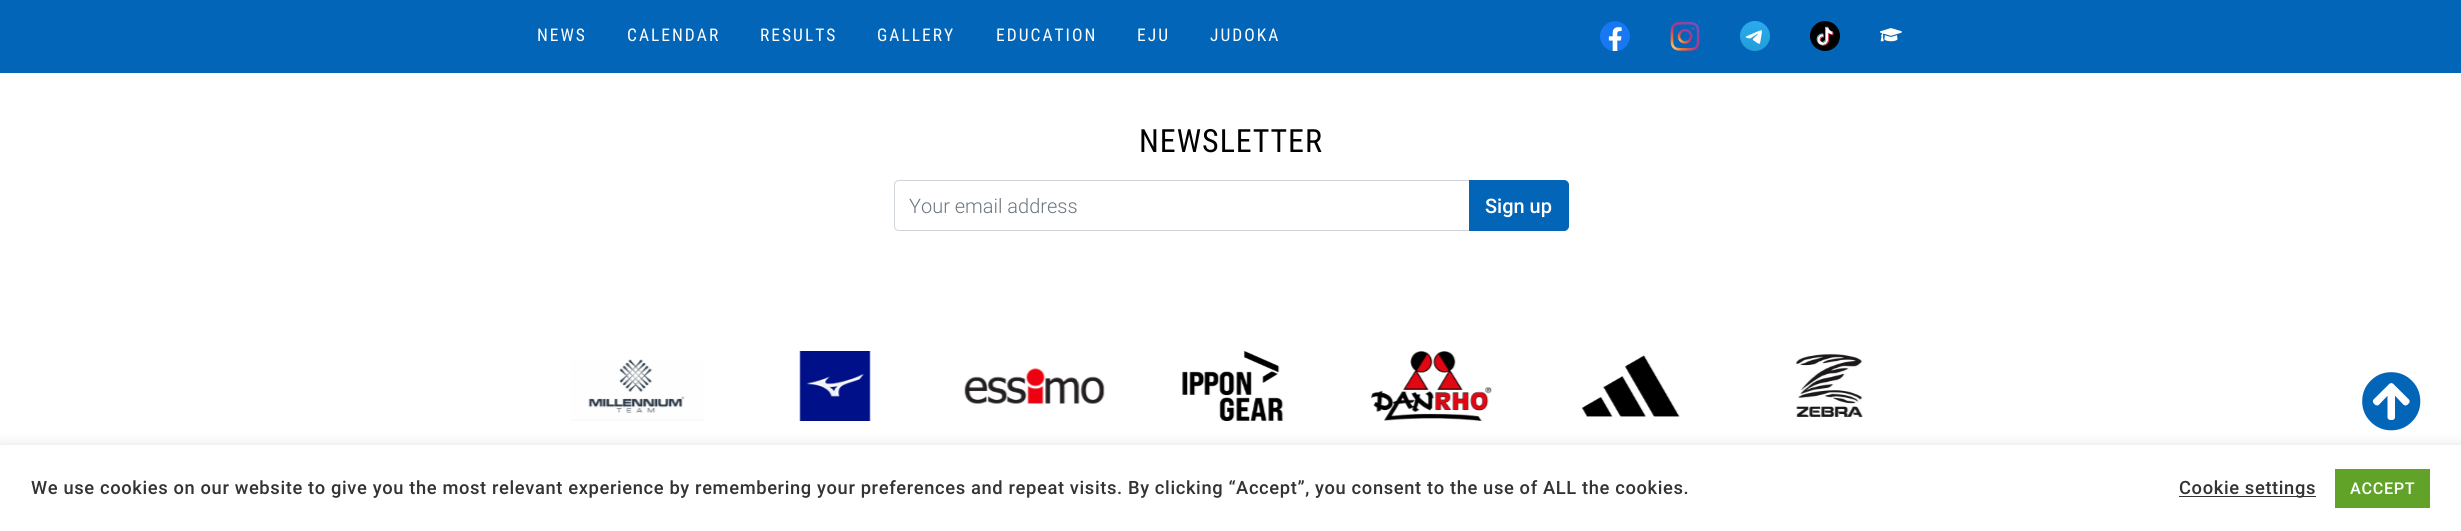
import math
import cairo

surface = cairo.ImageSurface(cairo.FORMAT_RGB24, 2461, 531)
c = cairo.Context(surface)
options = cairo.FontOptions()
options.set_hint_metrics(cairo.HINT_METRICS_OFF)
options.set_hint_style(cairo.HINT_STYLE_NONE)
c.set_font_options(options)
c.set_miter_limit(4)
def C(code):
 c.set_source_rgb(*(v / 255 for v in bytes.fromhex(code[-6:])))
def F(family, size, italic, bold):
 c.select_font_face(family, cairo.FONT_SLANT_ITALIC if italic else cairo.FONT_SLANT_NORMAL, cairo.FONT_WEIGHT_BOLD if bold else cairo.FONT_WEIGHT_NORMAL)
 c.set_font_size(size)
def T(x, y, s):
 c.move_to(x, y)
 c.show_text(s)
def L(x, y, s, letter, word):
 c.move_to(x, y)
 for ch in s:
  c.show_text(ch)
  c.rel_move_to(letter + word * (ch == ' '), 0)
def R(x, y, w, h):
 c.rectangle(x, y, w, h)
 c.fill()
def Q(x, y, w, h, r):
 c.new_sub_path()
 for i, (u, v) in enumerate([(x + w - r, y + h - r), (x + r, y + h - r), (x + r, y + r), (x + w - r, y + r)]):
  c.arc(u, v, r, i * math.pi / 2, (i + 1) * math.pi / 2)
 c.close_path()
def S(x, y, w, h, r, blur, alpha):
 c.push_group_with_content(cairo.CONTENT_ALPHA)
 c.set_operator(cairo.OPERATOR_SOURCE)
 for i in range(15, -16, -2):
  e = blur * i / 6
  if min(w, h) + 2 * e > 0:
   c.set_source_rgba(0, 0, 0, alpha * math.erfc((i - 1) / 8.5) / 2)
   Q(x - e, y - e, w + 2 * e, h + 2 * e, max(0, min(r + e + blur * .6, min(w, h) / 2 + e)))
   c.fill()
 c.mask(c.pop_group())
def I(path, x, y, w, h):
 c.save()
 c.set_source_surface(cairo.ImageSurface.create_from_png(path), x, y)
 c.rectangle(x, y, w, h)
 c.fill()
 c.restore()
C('ffffff')
c.paint()
C('0265b8')
R(0,0,2461,73)
F('Roboto Condensed',17.5,0,0)
C('ffffff')
L(537,41,'NEWS',2,0)
L(627,41,'CALENDAR',2,0)
L(760,41,'RESULTS',2,0)
L(877,41,'GALLERY',2,0)
L(996,41,'EDUCATION',2,0)
L(1137,41,'EJU',2,0)
L(1210,41,'JUDOKA',2,0)
I('1.png',1600,21,30,30)
I('2.png',1670,21,30,30)
I('3.png',1740,21,30,30)
I('4.png',1810,21,30,30)
I('5.png',1880,28,22,14)
F('Roboto Condensed',32,0,0)
C('000000')
L(1139,152,'NEWSLETTER',1,0)
c.new_path()
c.move_to(899,180.5)
c.line_to(1469.5,180.5)
c.line_to(1469.5,230.5)
c.line_to(899,230.5)
c.curve_to(896.5,230.5,894.5,228.5,894.5,226)
c.line_to(894.5,185)
c.curve_to(894.5,182.5,896.5,180.5,899,180.5)
c.close_path()
C('ced4da')
c.set_line_width(1)
c.stroke()
F('Roboto Light',20,0,0)
C('6c757d')
T(909,213,'Your email address')
C('0265b8')
c.new_path()
c.move_to(1469.5,180.5)
c.line_to(1564,180.5)
c.curve_to(1566.5,180.5,1568.5,182.5,1568.5,185)
c.line_to(1568.5,226)
c.curve_to(1568.5,228.5,1566.5,230.5,1564,230.5)
c.line_to(1469.5,230.5)
c.close_path()
c.fill_preserve()
c.stroke()
F('Roboto Medium',20,0,0)
C('ffffff')
T(1485,213,'Sign up')
I('6.png',570,359,135,62)
I('7.png',799,351,72,70)
I('8.png',964,368,141,36)
I('9.png',1182,351,102,70)
I('10.png',1371,351,121,70)
I('11.png',1581,355,99,62)
I('12.png',1796,353,67,65)
I('13.png',2362,372,59,59)
C('acabab')
S(0,444,2461,86,0,6,.3)
C('ffffff')
R(0,445,2461,86)
F('Roboto Medium',18.33,0,0)
C('333333')
L(31,494,'We use cookies on our website to give you the most relevant experience by remembering your preferences and repeat visits. By clicking “Accept”, you consent to the use of ALL the cookies.',.62,0)
R(2179,496,137,1)
L(2179,494,'Cookie settings',.62,0)
C('61a229')
R(2335,469,95,39)
F('Roboto Medium',16.25,0,0)
C('ffffff')
L(2350,494,'ACCEPT',.62,0)
surface.write_to_png('o.png')
